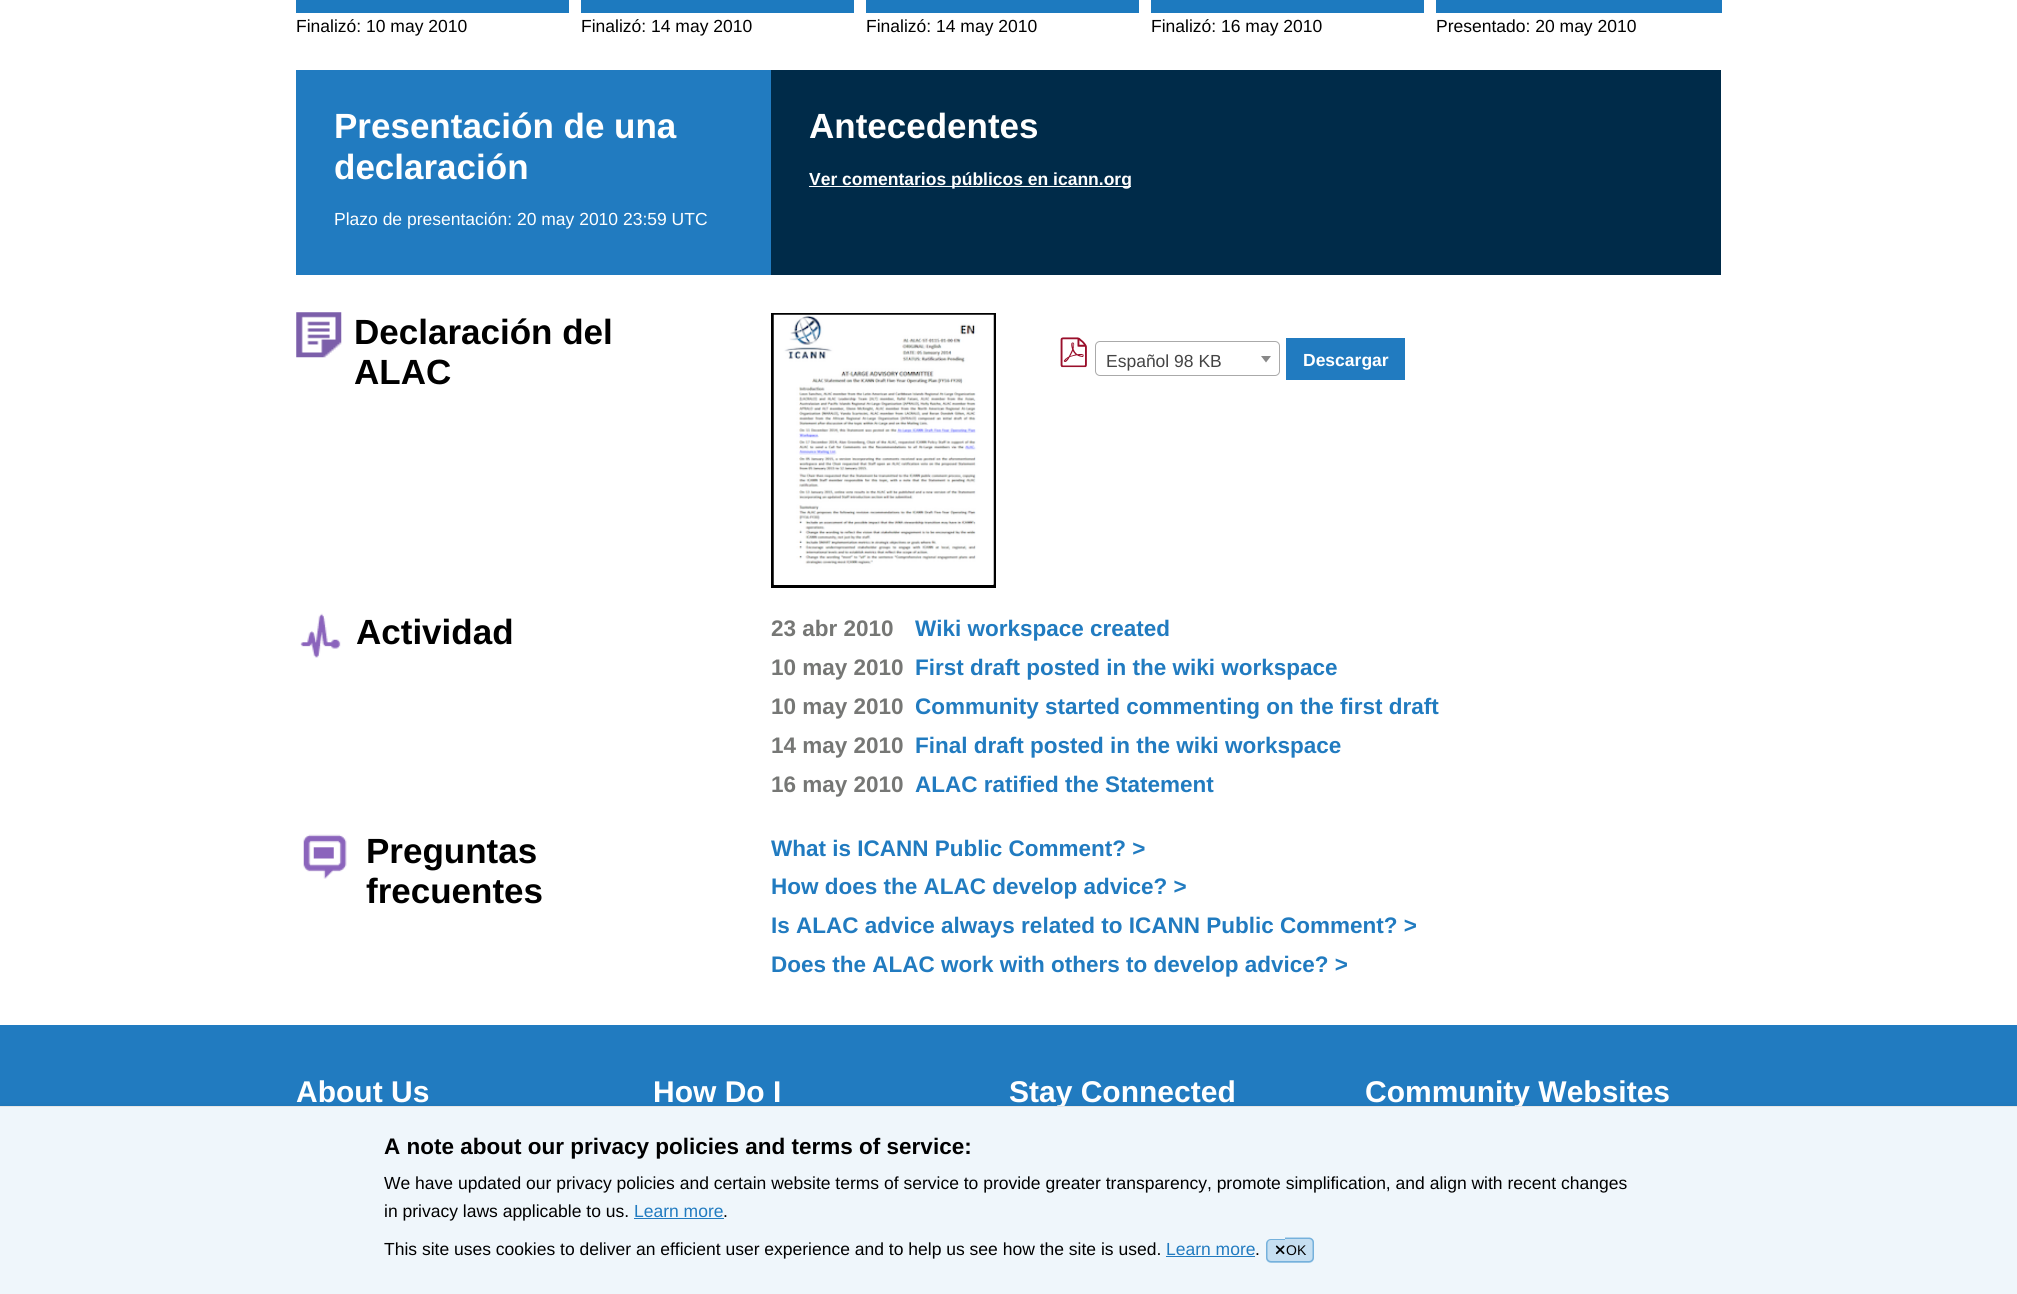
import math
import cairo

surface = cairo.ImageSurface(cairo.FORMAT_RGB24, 2017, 1294)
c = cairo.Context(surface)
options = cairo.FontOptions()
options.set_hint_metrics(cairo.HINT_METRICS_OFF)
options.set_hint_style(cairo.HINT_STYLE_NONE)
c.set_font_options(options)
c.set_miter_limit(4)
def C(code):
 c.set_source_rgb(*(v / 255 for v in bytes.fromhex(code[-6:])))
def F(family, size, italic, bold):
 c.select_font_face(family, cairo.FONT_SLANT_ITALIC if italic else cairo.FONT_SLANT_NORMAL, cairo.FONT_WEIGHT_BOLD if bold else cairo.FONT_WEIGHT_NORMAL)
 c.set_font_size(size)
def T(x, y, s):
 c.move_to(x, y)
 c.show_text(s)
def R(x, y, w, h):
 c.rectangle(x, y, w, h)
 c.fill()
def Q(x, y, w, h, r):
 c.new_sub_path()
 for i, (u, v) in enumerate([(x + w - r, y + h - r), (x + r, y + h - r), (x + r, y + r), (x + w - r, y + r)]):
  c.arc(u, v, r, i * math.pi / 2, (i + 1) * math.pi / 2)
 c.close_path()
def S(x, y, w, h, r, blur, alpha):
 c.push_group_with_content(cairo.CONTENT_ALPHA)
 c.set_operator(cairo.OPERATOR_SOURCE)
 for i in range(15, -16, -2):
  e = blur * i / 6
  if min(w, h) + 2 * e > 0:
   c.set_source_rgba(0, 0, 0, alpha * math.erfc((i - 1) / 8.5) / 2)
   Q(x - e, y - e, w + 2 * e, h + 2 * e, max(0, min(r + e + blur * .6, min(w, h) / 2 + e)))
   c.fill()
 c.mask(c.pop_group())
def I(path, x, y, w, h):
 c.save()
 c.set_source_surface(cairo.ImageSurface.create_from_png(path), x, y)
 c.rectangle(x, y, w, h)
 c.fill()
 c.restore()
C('ffffff')
c.paint()
C('1d7abf')
R(296,0,273,13)
F('Liberation Sans',17.5,0,0)
C('000000')
T(296,32,'Finalizó: 10 may 2010')
C('1d7abf')
R(581,0,273,13)
C('000000')
T(581,32,'Finalizó: 14 may 2010')
C('1d7abf')
R(866,0,273,13)
C('000000')
T(866,32,'Finalizó: 14 may 2010')
C('1d7abf')
R(1151,0,273,13)
C('000000')
T(1151,32,'Finalizó: 16 may 2010')
C('1d7abf')
R(1436,0,286,13)
C('000000')
T(1436,32,'Presentado: 20 may 2010')
C('217bc0')
R(296,70,475,205)
F('Liberation Sans',35,0,1)
C('ffffff')
T(334,138,'Presentación de una')
T(334,179,'declaración')
F('Liberation Sans',17.5,0,0)
T(334,225,'Plazo de presentación: 20 may 2010 23:59 UTC')
C('002b49')
R(771,70,950,205)
F('Liberation Sans',35,0,1)
C('ffffff')
T(809,138,'Antecedentes')
R(809,186,322,1)
F('Liberation Sans',17.5,0,1)
T(809,185,'Ver comentarios públicos en icann.org')
I('1.png',296,312,46,46)
F('Liberation Sans',35,0,1)
C('000000')
T(354,344,'Declaración del')
T(354,384,'ALAC')
c.rectangle(772.5,314.5,222,272)
c.set_line_width(3)
c.stroke()
I('2.png',773,314,221,271)
I('3.png',1060,337,27,31)
Q(1095.5,341.5,184,34,4.5)
C('aaaaaa')
c.set_line_width(1)
c.stroke()
F('Liberation Sans',17.5,0,0)
C('444444')
T(1106,367,'Español 98 KB')
C('888888')
c.new_path()
c.move_to(1261,356)
c.line_to(1271,356)
c.line_to(1266,362.5)
c.close_path()
c.fill()
C('217bc0')
R(1286,338,119,42)
F('Liberation Sans',17.5,0,1)
C('ffffff')
T(1303,366,'Descargar')
I('4.png',300,613,41,45)
F('Liberation Sans',35,0,1)
C('000000')
T(356,644,'Actividad')
F('Liberation Sans',22.5,0,1)
C('767775')
T(771,636,'23 abr 2010')
C('217bc0')
T(915,636,'Wiki workspace created')
C('767775')
T(771,675,'10 may 2010')
C('217bc0')
T(915,675,'First draft posted in the wiki workspace')
C('767775')
T(771,714,'10 may 2010')
C('217bc0')
T(915,714,'Community started commenting on the first draft')
C('767775')
T(771,753,'14 may 2010')
C('217bc0')
T(915,753,'Final draft posted in the wiki workspace')
C('767775')
T(771,792,'16 may 2010')
C('217bc0')
T(915,792,'ALAC ratified the Statement')
I('5.png',303,834,44,45)
F('Liberation Sans',35,0,1)
C('000000')
T(366,863,'Preguntas')
T(366,903,'frecuentes')
F('Liberation Sans',22.5,0,1)
C('217bc0')
T(771,856,'What is ICANN Public Comment? >')
T(771,894,'How does the ALAC develop advice? >')
T(771,933,'Is ALAC advice always related to ICANN Public Comment? >')
T(771,972,'Does the ALAC work with others to develop advice? >')
R(0,1025,2017,81)
F('Liberation Sans',30,0,1)
C('ffffff')
T(296,1102,'About Us')
T(653,1102,'How Do I')
T(1009,1102,'Stay Connected')
T(1365,1102,'Community Websites')
C('000000')
S(0,1105,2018,189,0,2,.05)
C('eff6fb')
R(0,1107,2017,187)
C('e6e6e6')
R(0,1106,2017,1)
F('Liberation Sans',22.5,0,1)
C('000000')
T(384,1154,'A note about our privacy policies and terms of service:')
F('Liberation Sans',17.5,0,0)
T(384,1189,'We have updated our privacy policies and certain website terms of service to provide greater transparency, promote simplification, and align with recent changes')
T(384,1217,'in privacy laws applicable to us.')
C('217bc0')
T(634,1217,'Learn more')
R(634,1218,90,1)
C('000000')
T(723,1217,'.')
T(384,1255,'This site uses cookies to deliver an efficient user experience and to help us see how the site is used.')
C('217bc0')
T(1166,1255,'Learn more')
R(1166,1256,89,1)
C('000000')
T(1255,1255,'.')
C('c6dff1')
c.new_path()
c.move_to(1271,1239)
c.line_to(1285,1239)
c.line_to(1285,1263)
c.line_to(1271,1263)
c.curve_to(1268,1263,1266,1261,1266,1258)
c.line_to(1266,1244)
c.curve_to(1266,1241,1268,1239,1271,1239)
c.close_path()
c.fill()
C('75b1dc')
c.set_fill_rule(cairo.FILL_RULE_EVEN_ODD)
c.new_path()
c.move_to(1271,1239)
c.line_to(1285,1239)
c.line_to(1285,1262.5)
c.line_to(1271,1262.5)
c.curve_to(1268.5,1262.5,1266,1260.5,1266,1257.5)
c.line_to(1266,1244)
c.curve_to(1266,1241,1268.5,1239,1271,1239)
c.close_path()
c.move_to(1271,1240)
c.line_to(1285,1240)
c.line_to(1285,1261)
c.line_to(1271,1261)
c.curve_to(1269,1261,1267.5,1259.5,1267.5,1257.5)
c.line_to(1267.5,1244)
c.curve_to(1267.5,1241.5,1269,1240,1271,1240)
c.close_path()
c.fill()
C('c6dff1')
c.new_path()
c.move_to(1285,1238)
c.line_to(1309,1238)
c.curve_to(1312,1238,1314,1240,1314,1243)
c.line_to(1314,1258)
c.curve_to(1314,1261,1312,1263,1309,1263)
c.line_to(1285,1263)
c.close_path()
c.fill()
C('75b1dc')
c.new_path()
c.move_to(1285,1237.5)
c.line_to(1309,1237.5)
c.curve_to(1311.5,1237.5,1314,1239.5,1314,1242.5)
c.line_to(1314,1257.5)
c.curve_to(1314,1260.5,1311.5,1262.5,1309,1262.5)
c.line_to(1285,1262.5)
c.close_path()
c.move_to(1285,1239)
c.line_to(1309,1239)
c.curve_to(1311,1239,1312.5,1240.5,1312.5,1242.5)
c.line_to(1312.5,1257.5)
c.curve_to(1312.5,1259.5,1311,1261,1309,1261)
c.line_to(1285,1261)
c.close_path()
c.fill()
I('6.png',1275,1245,10,10)
F('Liberation Sans',14,0,0)
C('000000')
T(1286,1255,'OK')
surface.write_to_png('o.png')
